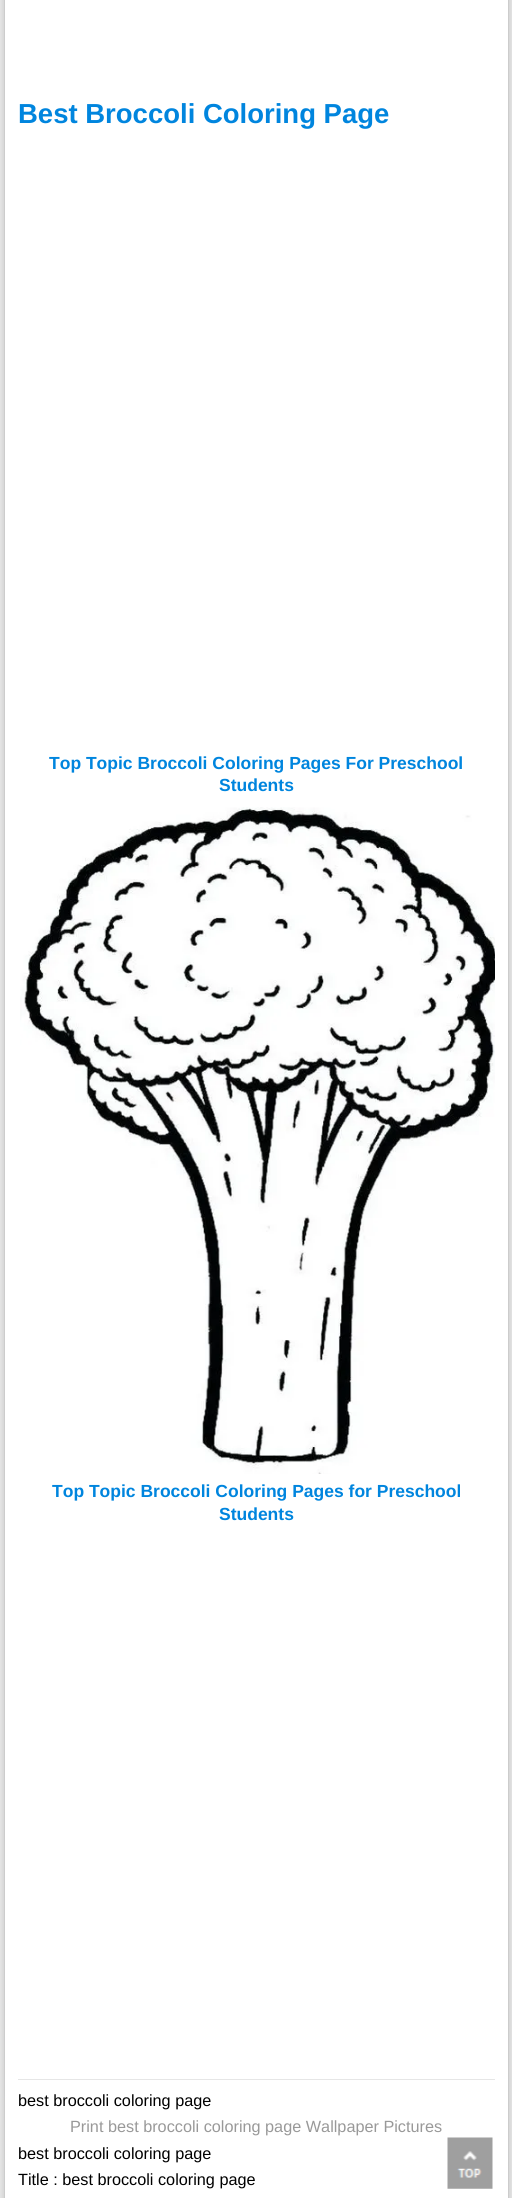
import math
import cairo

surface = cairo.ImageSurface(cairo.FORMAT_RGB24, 512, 2198)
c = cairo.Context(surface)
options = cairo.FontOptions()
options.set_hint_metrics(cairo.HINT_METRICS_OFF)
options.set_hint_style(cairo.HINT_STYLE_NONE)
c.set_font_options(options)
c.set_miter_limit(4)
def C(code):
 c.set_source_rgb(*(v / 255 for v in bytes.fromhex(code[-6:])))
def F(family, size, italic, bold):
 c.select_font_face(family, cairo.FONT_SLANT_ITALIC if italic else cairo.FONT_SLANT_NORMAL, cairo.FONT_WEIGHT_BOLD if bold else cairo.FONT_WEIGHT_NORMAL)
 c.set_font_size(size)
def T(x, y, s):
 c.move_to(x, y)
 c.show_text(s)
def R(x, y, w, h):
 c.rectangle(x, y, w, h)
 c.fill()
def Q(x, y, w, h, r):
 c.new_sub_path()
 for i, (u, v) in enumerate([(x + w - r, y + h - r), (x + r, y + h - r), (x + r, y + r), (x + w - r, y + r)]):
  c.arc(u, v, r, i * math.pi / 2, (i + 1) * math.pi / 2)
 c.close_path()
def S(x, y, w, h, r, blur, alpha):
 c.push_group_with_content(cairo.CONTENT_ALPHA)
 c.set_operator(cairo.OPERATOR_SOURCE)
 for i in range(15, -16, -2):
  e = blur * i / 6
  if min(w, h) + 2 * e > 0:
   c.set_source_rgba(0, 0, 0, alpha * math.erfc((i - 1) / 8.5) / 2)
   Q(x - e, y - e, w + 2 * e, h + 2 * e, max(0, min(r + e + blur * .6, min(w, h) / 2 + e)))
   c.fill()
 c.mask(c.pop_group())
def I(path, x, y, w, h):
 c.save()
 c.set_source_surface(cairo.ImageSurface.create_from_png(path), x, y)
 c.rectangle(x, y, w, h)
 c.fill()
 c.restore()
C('ebebeb')
c.paint()
C('646464')
S(4,-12,505,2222,0,4,.3)
C('ffffff')
c.rectangle(4.5,-.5,504,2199)
c.fill_preserve()
C('cccccc')
c.set_line_width(1)
c.stroke()
C('e6e6e6')
R(18,2079,477,1)
F('Liberation Sans',27.5,0,1)
C('0085de')
T(18,123,'Best Broccoli Coloring Page')
F('Liberation Sans',17.5,0,1)
T(49,769,'Top Topic Broccoli Coloring Pages For Preschool')
T(219,791,'Students')
I('1.png',20,807,475,667)
T(52,1497,'Top Topic Broccoli Coloring Pages for Preschool')
T(219,1520,'Students')
F('Liberation Sans',16.25,0,0)
C('000000')
T(18,2106,'best broccoli coloring page')
C('999999')
T(70,2132,'Print best broccoli coloring page Wallpaper Pictures')
C('000000')
T(18,2159,'best broccoli coloring page')
T(18,2185,'Title : best broccoli coloring page')
I('2.png',447,2137,46,52)
surface.write_to_png('o.png')
